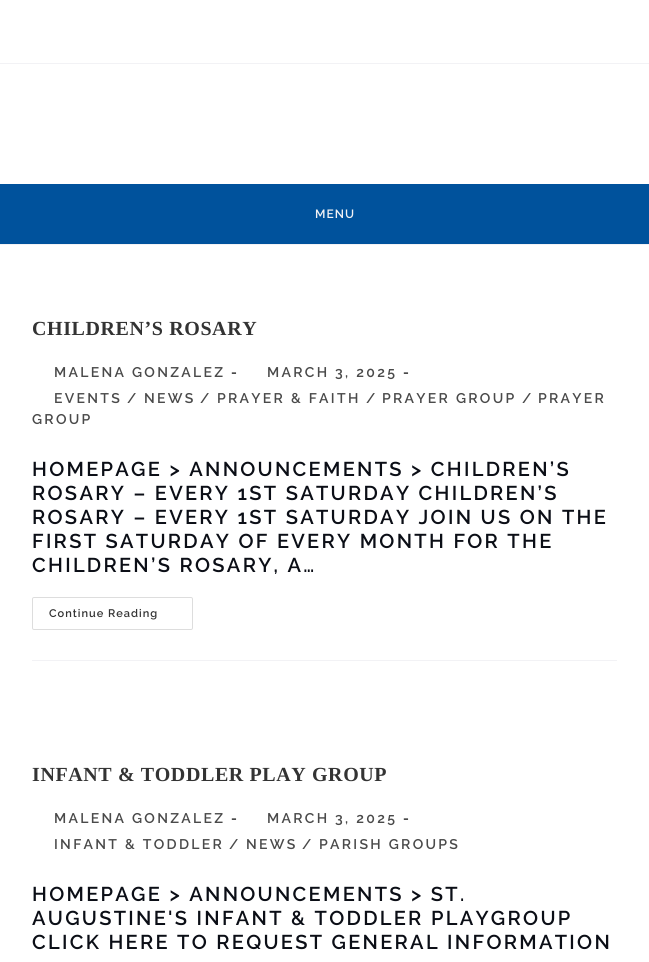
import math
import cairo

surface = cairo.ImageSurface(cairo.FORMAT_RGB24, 649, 962)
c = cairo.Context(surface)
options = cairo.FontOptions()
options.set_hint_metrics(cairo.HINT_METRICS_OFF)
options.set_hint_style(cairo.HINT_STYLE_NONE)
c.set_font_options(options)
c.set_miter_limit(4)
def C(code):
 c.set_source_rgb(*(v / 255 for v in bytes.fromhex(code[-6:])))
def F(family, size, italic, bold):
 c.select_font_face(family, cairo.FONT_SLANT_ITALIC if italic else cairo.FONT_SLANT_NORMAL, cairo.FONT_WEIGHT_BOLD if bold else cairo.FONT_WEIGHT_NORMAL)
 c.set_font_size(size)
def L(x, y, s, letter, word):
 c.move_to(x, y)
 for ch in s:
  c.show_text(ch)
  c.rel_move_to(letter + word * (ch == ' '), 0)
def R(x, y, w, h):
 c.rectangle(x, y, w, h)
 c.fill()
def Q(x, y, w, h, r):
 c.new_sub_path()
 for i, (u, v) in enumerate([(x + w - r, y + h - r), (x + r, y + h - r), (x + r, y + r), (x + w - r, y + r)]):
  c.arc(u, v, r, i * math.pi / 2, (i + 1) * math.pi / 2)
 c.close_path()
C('ffffff')
c.paint()
C('f2f2f5')
R(0,63,649,1)
R(0,244,649,1)
C('00529c')
R(0,184,649,60)
F('Raleway SemiBold',12,0,0)
C('f2f2f5')
L(315,218,'MENU',1,0)
R(32,660,585,1)
F('Liberation Serif',20,0,1)
C('333333')
L(32,335,'CHILDREN’S ROSARY',.6,0)
F('Raleway SemiBold',14,0,0)
C('4a4a4a')
L(54,377,'MALENA GONZALEZ',2.3,0)
F('Raleway',14,0,1)
L(231,377,'-',2.3,0)
F('Raleway SemiBold',14,0,0)
L(267,377,'MARCH 3, 2025',2.3,0)
F('Raleway',14,0,1)
L(403,377,'-',2.3,0)
F('Raleway SemiBold',14,0,0)
L(54,403,'EVENTS',2.3,0)
L(127,403,'/',2.3,0)
L(144,403,'NEWS',2.3,0)
L(200,403,'/',2.3,0)
L(217,403,'PRAYER & FAITH',2.3,0)
L(366,403,'/',2.3,0)
L(382,403,'PRAYER GROUP',2.3,0)
L(522,403,'/',2.3,0)
L(538,403,'PRAYER',2.3,0)
L(32,424,'GROUP',2.3,0)
F('Raleway SemiBold',20,0,0)
C('0b0e16')
L(32,476,'HOMEPAGE > ANNOUNCEMENTS > CHILDREN’S',2.3,0)
L(32,500,'ROSARY – EVERY 1ST SATURDAY CHILDREN’S',2.3,0)
L(32,524,'ROSARY – EVERY 1ST SATURDAY JOIN US ON THE',2.3,0)
L(32,548,'FIRST SATURDAY OF EVERY MONTH FOR THE',2.3,0)
L(32,572,'CHILDREN’S ROSARY, A…',2.3,0)
Q(32.5,597.5,160,32,1.5)
C('dddddd')
c.set_line_width(1)
c.stroke()
F('Raleway SemiBold',11,0,0)
C('333333')
L(49,617,'Continue Reading',1,0)
F('Liberation Serif',20,0,1)
L(32,781,'INFANT & TODDLER PLAY GROUP',.6,0)
F('Raleway SemiBold',14,0,0)
C('4a4a4a')
L(54,823,'MALENA GONZALEZ',2.3,0)
F('Raleway',14,0,1)
L(231,823,'-',2.3,0)
F('Raleway SemiBold',14,0,0)
L(267,823,'MARCH 3, 2025',2.3,0)
F('Raleway',14,0,1)
L(403,823,'-',2.3,0)
F('Raleway SemiBold',14,0,0)
L(54,849,'INFANT & TODDLER',2.3,0)
L(229,849,'/',2.3,0)
L(246,849,'NEWS',2.3,0)
L(302,849,'/',2.3,0)
L(319,849,'PARISH GROUPS',2.3,0)
F('Raleway SemiBold',20,0,0)
C('0b0e16')
L(32,901,'HOMEPAGE > ANNOUNCEMENTS > ST.',2.3,0)
L(32,925,'AUGUSTINE\'S INFANT & TODDLER PLAYGROUP',2.3,0)
L(32,949,'CLICK HERE TO REQUEST GENERAL INFORMATION',2.3,0)
surface.write_to_png('o.png')
